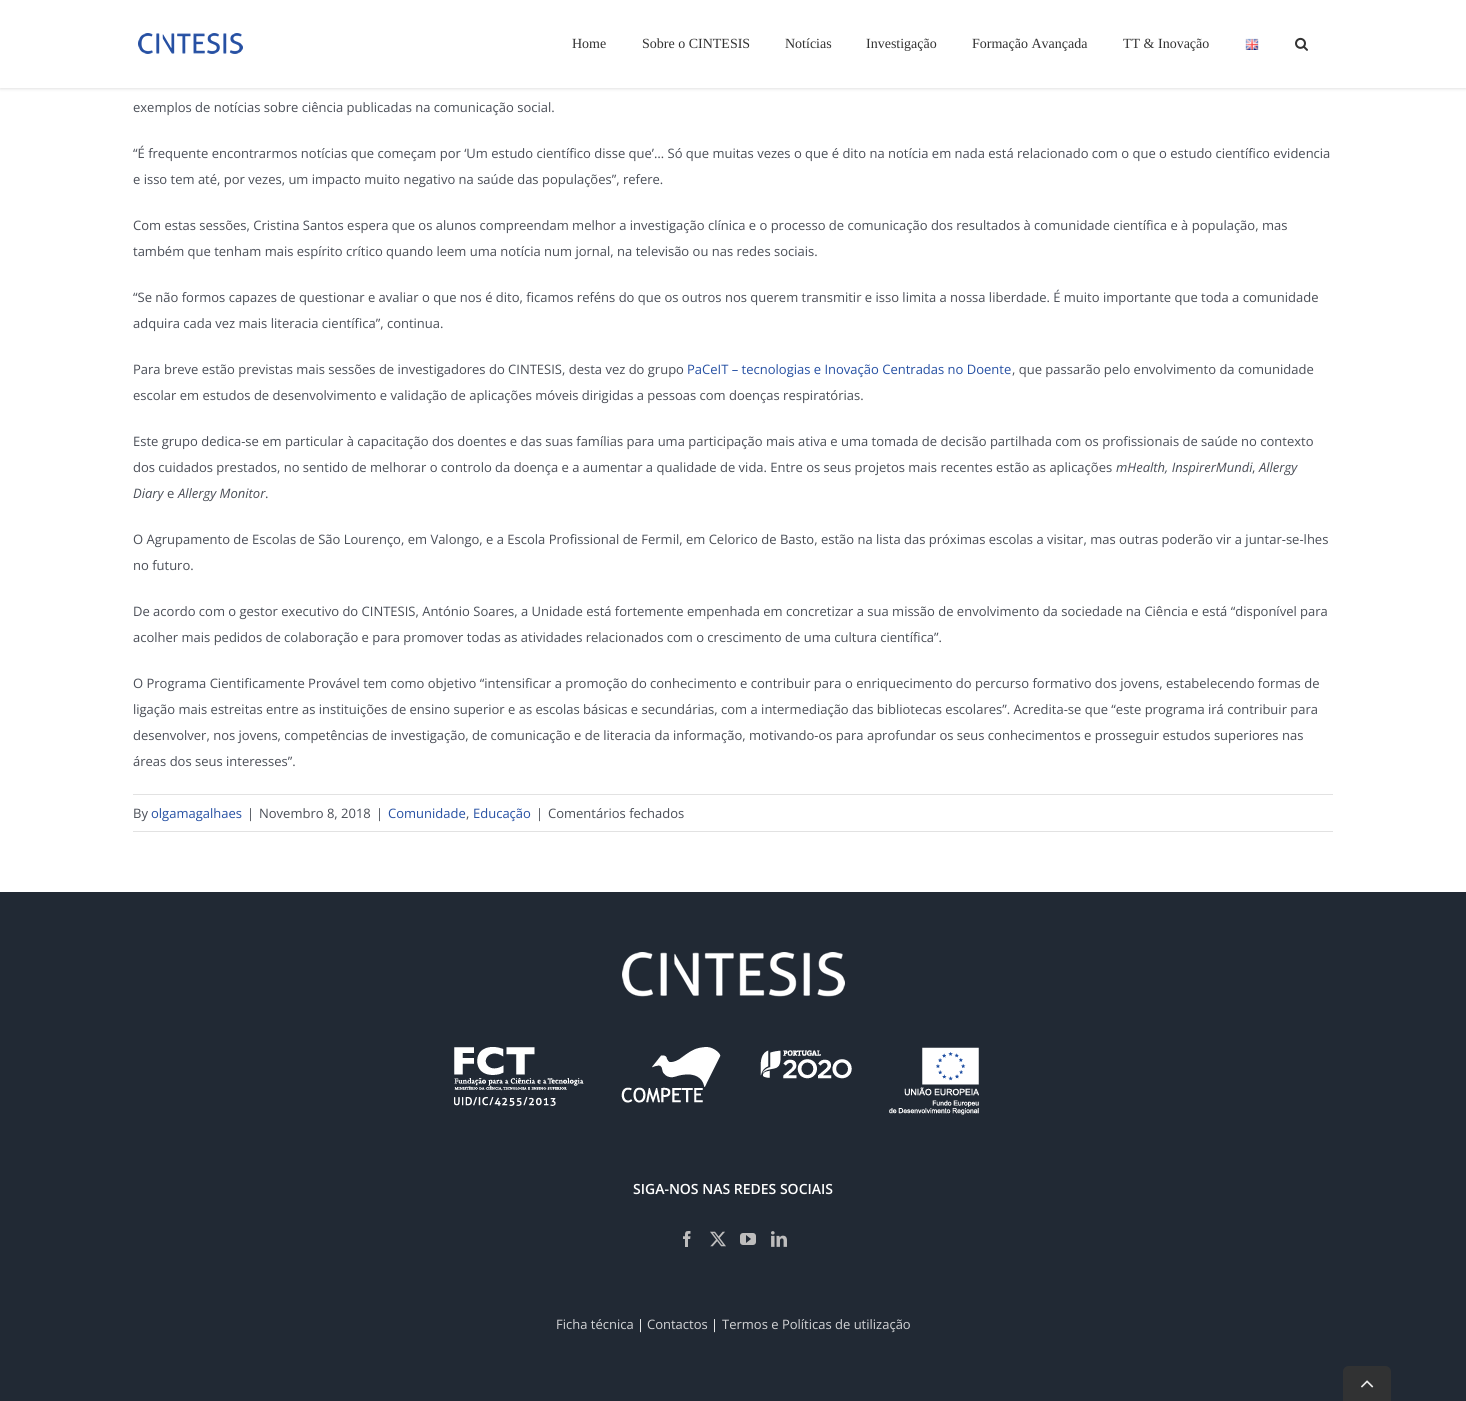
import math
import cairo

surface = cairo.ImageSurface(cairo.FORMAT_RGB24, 1466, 1401)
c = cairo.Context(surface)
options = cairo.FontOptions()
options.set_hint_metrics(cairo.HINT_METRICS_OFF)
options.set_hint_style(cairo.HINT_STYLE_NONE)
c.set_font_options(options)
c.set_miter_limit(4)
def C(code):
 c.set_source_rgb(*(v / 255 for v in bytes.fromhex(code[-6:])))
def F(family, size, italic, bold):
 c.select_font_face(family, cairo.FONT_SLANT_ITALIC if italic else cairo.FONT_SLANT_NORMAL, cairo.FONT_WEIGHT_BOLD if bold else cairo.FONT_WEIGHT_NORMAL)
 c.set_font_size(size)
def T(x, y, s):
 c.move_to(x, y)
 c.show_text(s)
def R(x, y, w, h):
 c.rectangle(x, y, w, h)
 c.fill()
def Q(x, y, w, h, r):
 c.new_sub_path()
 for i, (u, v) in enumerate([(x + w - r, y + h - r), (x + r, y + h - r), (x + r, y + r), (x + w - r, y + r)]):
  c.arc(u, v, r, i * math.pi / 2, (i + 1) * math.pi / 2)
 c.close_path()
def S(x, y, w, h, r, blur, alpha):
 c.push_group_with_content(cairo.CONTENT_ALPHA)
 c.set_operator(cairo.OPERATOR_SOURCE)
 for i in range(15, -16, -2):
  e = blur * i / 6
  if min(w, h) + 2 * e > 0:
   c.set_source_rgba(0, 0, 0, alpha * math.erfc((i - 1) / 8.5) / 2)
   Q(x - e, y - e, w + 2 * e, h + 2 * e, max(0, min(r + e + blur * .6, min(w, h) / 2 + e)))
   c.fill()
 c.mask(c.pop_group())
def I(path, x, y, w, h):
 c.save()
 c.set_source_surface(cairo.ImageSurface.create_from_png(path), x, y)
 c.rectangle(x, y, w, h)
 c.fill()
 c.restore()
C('ffffff')
c.paint()
C('000000')
S(0,1,1466,88,0,1.5,.12)
C('ffffff')
R(0,0,1466,88)
I('1.png',138,33,105,21)
F('Liberation Serif',14,0,0)
C('333333')
T(572,48,'Home')
T(642,48,'Sobre o CINTESIS')
T(785,48,'Notícias')
T(866,48,'Investigação')
T(972,48,'Formação Avançada')
T(1123,48,'TT & Inovação')
I('2.png',1245,38,14,12)
I('3.png',1295,37,13,14)
F('Open Sans',13,0,0)
C('4a4e57')
T(133,112,'exemplos de notícias sobre ciência publicadas na comunicação social.')
T(133,158,'“É frequente encontrarmos notícias que começam por ‘Um estudo científico disse que’… Só que muitas vezes o que é dito na notícia em nada está relacionado com o que o estudo científico evidencia')
T(133,184,'e isso tem até, por vezes, um impacto muito negativo na saúde das populações”, refere.')
T(133,230,'Com estas sessões, Cristina Santos espera que os alunos compreendam melhor a investigação clínica e o processo de comunicação dos resultados à comunidade científica e à população, mas')
T(133,256,'também que tenham mais espírito crítico quando leem uma notícia num jornal, na televisão ou nas redes sociais.')
T(133,302,'“Se não formos capazes de questionar e avaliar o que nos é dito, ficamos reféns do que os outros nos querem transmitir e isso limita a nossa liberdade. É muito importante que toda a comunidade')
T(133,328,'adquira cada vez mais literacia científica”, continua.')
T(133,374,'Para breve estão previstas mais sessões de investigadores do CINTESIS, desta vez do grupo')
C('2650a3')
T(687,374,'PaCeIT – tecnologias e Inovação Centradas no Doente')
C('4a4e57')
T(1012,374,', que passarão pelo envolvimento da comunidade')
T(133,400,'escolar em estudos de desenvolvimento e validação de aplicações móveis dirigidas a pessoas com doenças respiratórias.')
T(133,446,'Este grupo dedica-se em particular à capacitação dos doentes e das suas famílias para uma participação mais ativa e uma tomada de decisão partilhada com os profissionais de saúde no contexto')
T(133,472,'dos cuidados prestados, no sentido de melhorar o controlo da doença e a aumentar a qualidade de vida. Entre os seus projetos mais recentes estão as aplicações')
F('Open Sans',13,1,0)
T(1116,472,'mHealth, InspirerMundi')
F('Open Sans',13,0,0)
T(1252,472,',')
F('Open Sans',13,1,0)
T(1259,472,'Allergy')
T(133,498,'Diary')
F('Open Sans',13,0,0)
T(167,498,'e')
F('Open Sans',13,1,0)
T(178,498,'Allergy Monitor')
F('Open Sans',13,0,0)
T(265,498,'.')
T(133,544,'O Agrupamento de Escolas de São Lourenço, em Valongo, e a Escola Profissional de Fermil, em Celorico de Basto, estão na lista das próximas escolas a visitar, mas outras poderão vir a juntar-se-lhes')
T(133,570,'no futuro.')
T(133,616,'De acordo com o gestor executivo do CINTESIS, António Soares, a Unidade está fortemente empenhada em concretizar a sua missão de envolvimento da sociedade na Ciência e está “disponível para')
T(133,642,'acolher mais pedidos de colaboração e para promover todas as atividades relacionados com o crescimento de uma cultura científica”.')
T(133,688,'O Programa Cientificamente Provável tem como objetivo “intensificar a promoção do conhecimento e contribuir para o enriquecimento do percurso formativo dos jovens, estabelecendo formas de')
T(133,714,'ligação mais estreitas entre as instituições de ensino superior e as escolas básicas e secundárias, com a intermediação das bibliotecas escolares”. Acredita-se que “este programa irá contribuir para')
T(133,740,'desenvolver, nos jovens, competências de investigação, de comunicação e de literacia da informação, motivando-os para aprofundar os seus conhecimentos e prosseguir estudos superiores nas')
T(133,766,'áreas dos seus interesses”.')
C('e2e2e2')
R(133,794,1200,1)
R(133,831,1200,1)
C('4a4e57')
T(133,818,'By')
C('2650a3')
T(151,818,'olgamagalhaes')
C('4a4e57')
T(247,818,'|')
T(259,818,'Novembro 8, 2018')
T(376,818,'|')
C('2650a3')
T(388,818,'Comunidade')
C('4a4e57')
T(466,818,',')
C('2650a3')
T(473,818,'Educação')
C('4a4e57')
T(536,818,'|')
T(548,818,'Comentários fechados')
C('212934')
R(0,892,1466,509)
I('4.png',622,952,223,45)
I('5.png',454,1047,130,59)
I('6.png',621,1047,100,56)
I('7.png',760,1050,92,29)
I('8.png',889,1047,90,68)
F('Open Sans SemiBold',14,0,0)
C('ffffff')
T(633,1194,'SIGA-NOS NAS REDES SOCIAIS')
I('9.png',683,1231,8,16)
I('10.png',710,1231,16,16)
I('11.png',740,1233,16,12)
I('12.png',771,1231,16,16)
F('Open Sans',13,0,0)
C('d3d4d6')
T(556,1329,'Ficha técnica')
C('ffffff')
T(637,1329,'|')
C('d3d4d6')
T(647,1329,'Contactos')
C('ffffff')
T(711,1329,'|')
C('d3d4d6')
T(722,1329,'Termos e Políticas de utilização')
C('313233')
c.new_path()
c.move_to(1349,1366)
c.line_to(1385,1366)
c.curve_to(1388.5,1366,1391,1368.5,1391,1372)
c.line_to(1391,1401)
c.line_to(1343,1401)
c.line_to(1343,1372)
c.curve_to(1343,1368.5,1345.5,1366,1349,1366)
c.close_path()
c.fill()
I('13.png',1361,1380,13,8)
surface.write_to_png('o.png')
